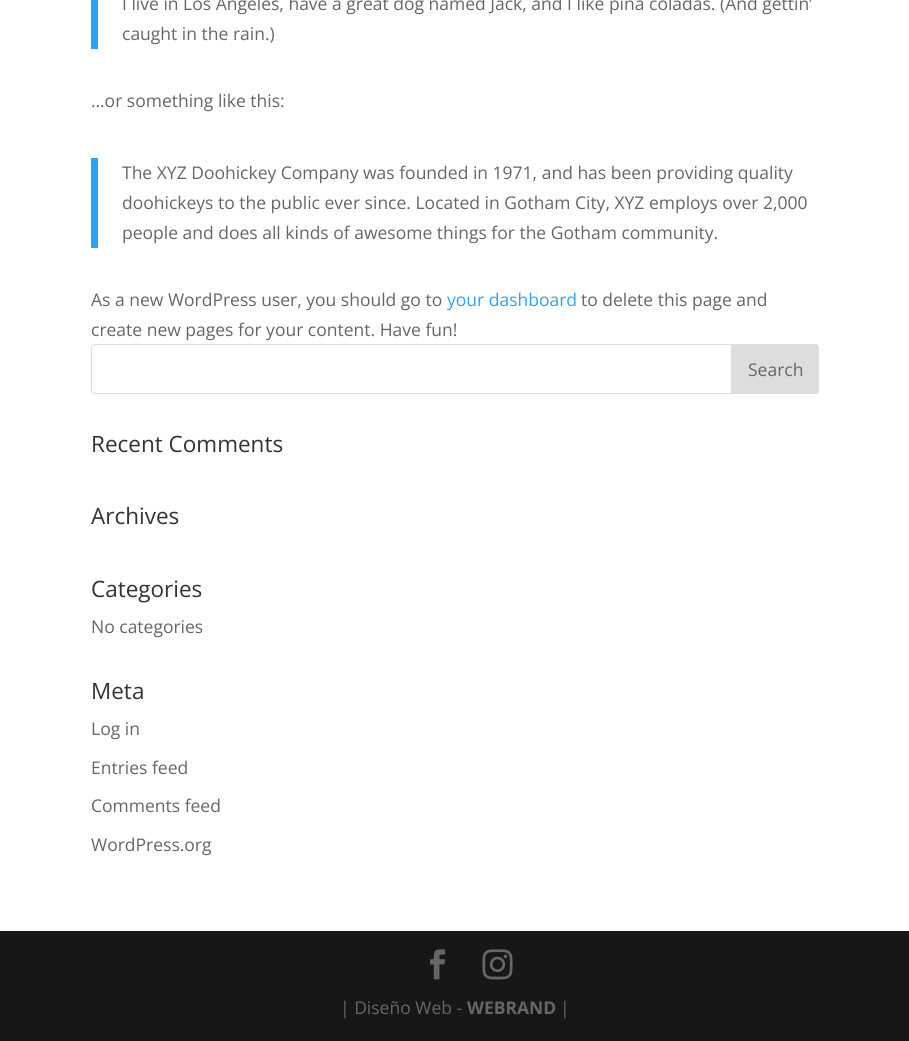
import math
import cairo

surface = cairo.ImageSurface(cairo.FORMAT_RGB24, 909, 1041)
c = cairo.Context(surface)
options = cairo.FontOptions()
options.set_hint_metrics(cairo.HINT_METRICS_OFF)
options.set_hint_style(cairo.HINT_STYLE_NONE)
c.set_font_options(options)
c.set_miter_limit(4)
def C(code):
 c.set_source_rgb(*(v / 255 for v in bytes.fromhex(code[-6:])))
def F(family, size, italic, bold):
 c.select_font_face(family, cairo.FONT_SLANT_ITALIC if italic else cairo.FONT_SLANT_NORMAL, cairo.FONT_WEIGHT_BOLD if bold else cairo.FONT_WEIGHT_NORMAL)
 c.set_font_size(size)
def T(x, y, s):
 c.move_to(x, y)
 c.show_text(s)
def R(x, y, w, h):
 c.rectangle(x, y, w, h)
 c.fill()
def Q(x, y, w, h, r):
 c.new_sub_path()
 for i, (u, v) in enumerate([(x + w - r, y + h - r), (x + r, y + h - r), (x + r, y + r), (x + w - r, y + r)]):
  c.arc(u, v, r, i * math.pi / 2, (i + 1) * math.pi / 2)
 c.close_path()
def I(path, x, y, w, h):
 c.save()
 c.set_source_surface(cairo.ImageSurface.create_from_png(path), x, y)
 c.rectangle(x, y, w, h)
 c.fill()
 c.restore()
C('ffffff')
c.paint()
C('2ea3f2')
R(91,0,7,49)
F('Open Sans',17.5,0,0)
C('666666')
T(122,10,'I live in Los Angeles, have a great dog named Jack, and I like piña coladas. (And gettin’')
T(122,40,'caught in the rain.)')
T(91,107,'…or something like this:')
C('2ea3f2')
R(91,158,7,90)
C('666666')
T(122,179,'The XYZ Doohickey Company was founded in 1971, and has been providing quality')
T(122,209,'doohickeys to the public ever since. Located in Gotham City, XYZ employs over 2,000')
T(122,239,'people and does all kinds of awesome things for the Gotham community.')
T(91,306,'As a new WordPress user, you should go to')
C('2ea3f2')
T(447,306,'your dashboard')
C('666666')
T(581,306,'to delete this page and')
T(91,336,'create new pages for your content. Have fun!')
Q(91.5,344.5,727,49,3.5)
C('dddddd')
c.set_line_width(1)
c.stroke()
c.new_path()
c.move_to(731.5,344.5)
c.line_to(815,344.5)
c.curve_to(817,344.5,818.5,346,818.5,348)
c.line_to(818.5,390)
c.curve_to(818.5,392,817,393.5,815,393.5)
c.line_to(731.5,393.5)
c.close_path()
c.fill_preserve()
c.stroke()
C('666666')
T(748,376,'Search')
F('Open Sans',22.5,0,0)
C('333333')
T(91,452,'Recent Comments')
T(91,524,'Archives')
T(91,597,'Categories')
F('Open Sans',17.5,0,0)
C('666666')
T(91,633,'No categories')
F('Open Sans',22.5,0,0)
C('333333')
T(91,699,'Meta')
F('Open Sans',17.5,0,0)
C('666666')
T(91,735,'Log in')
T(91,774,'Entries feed')
T(91,812,'Comments feed')
T(91,851,'WordPress.org')
C('171717')
R(0,931,909,110)
I('1.png',430,949,15,31)
I('2.png',482,949,31,31)
C('666666')
T(340,1014,'| Diseño Web -')
F('Open Sans',17.5,0,1)
T(467,1014,'WEBRAND')
F('Open Sans',17.5,0,0)
T(560,1014,'|')
surface.write_to_png('o.png')
